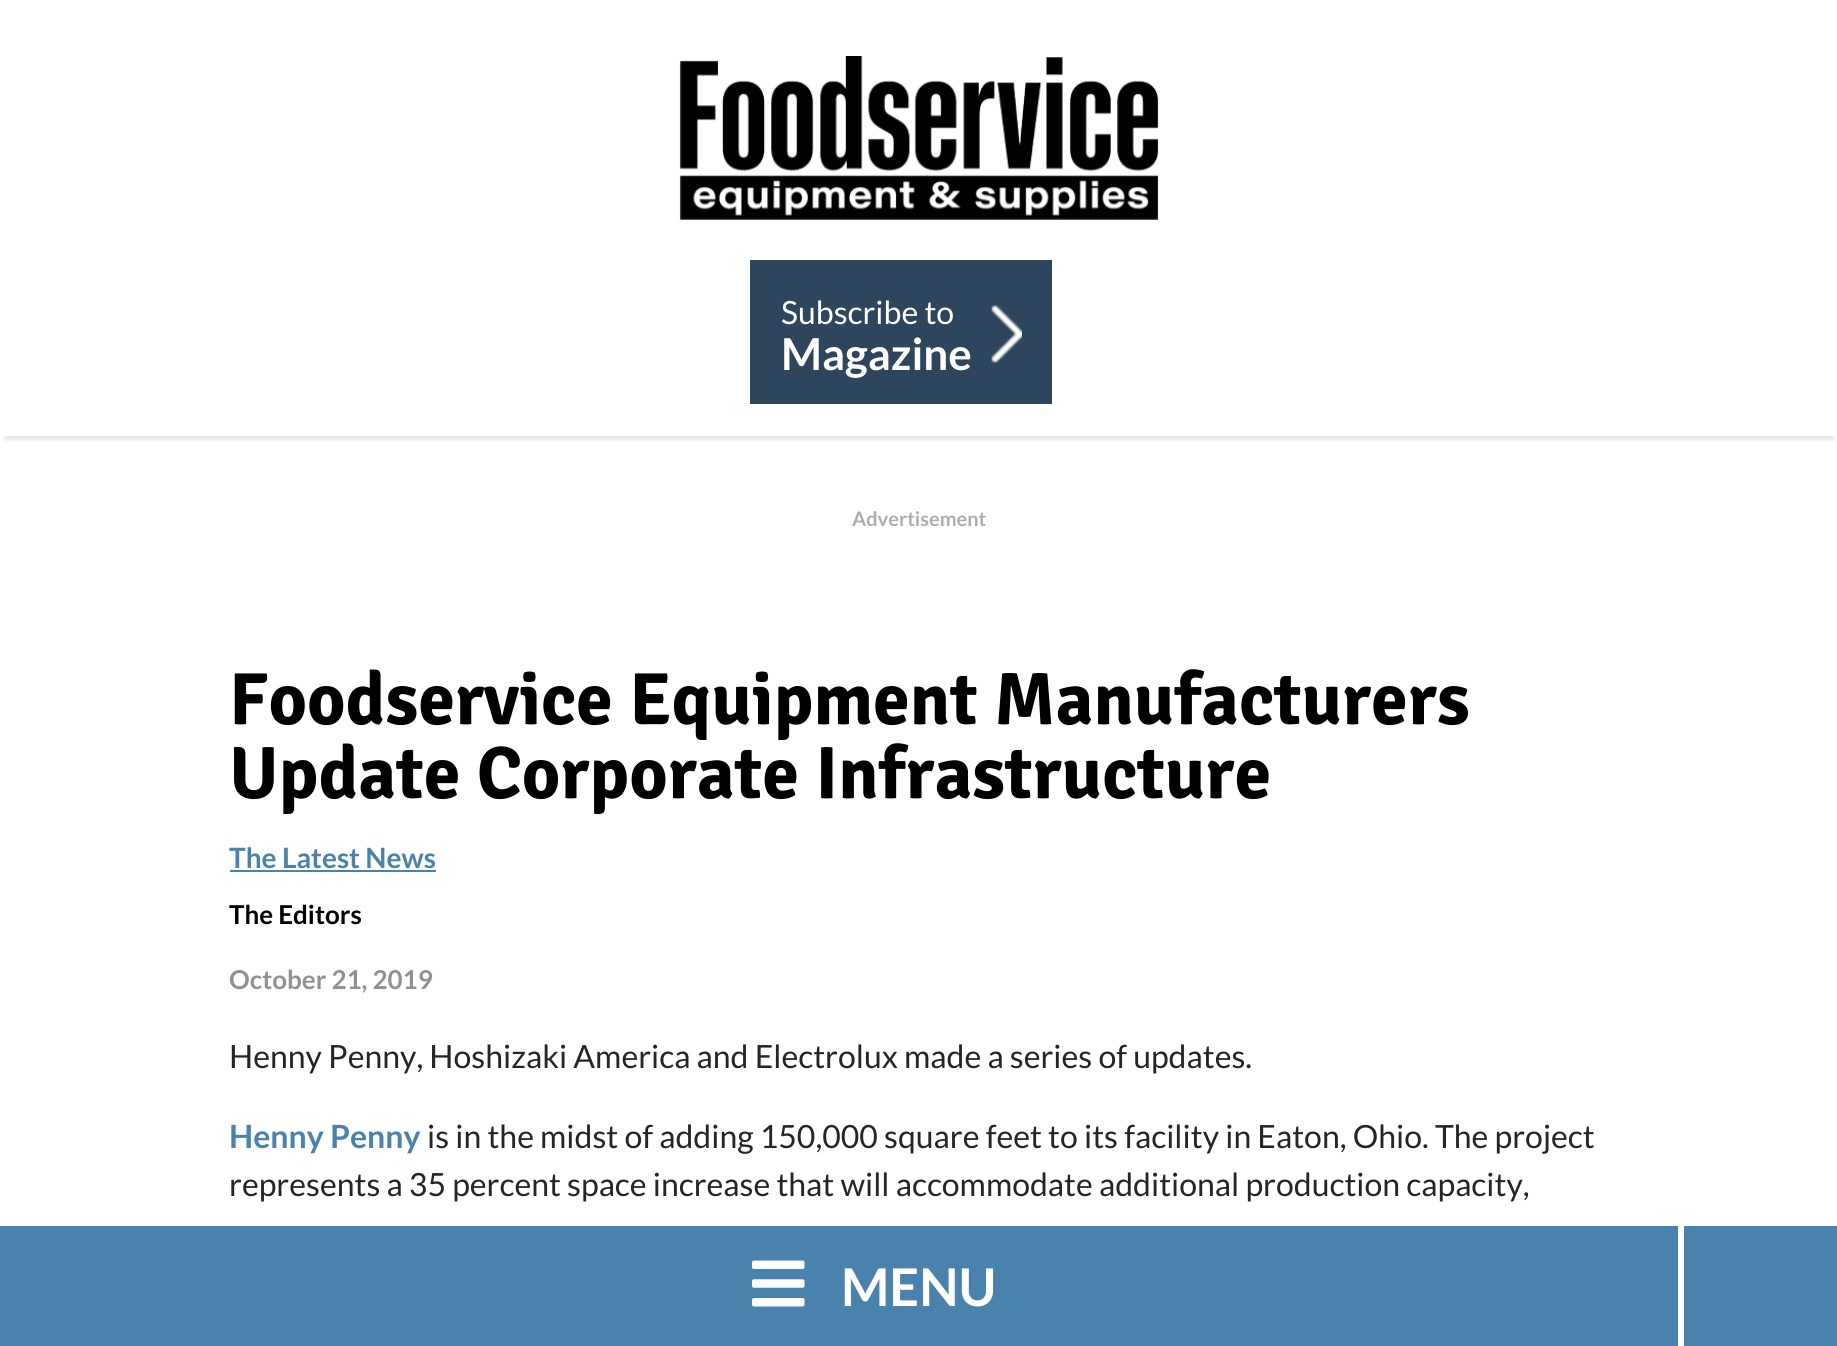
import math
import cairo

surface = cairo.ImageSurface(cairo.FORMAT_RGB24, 1837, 1346)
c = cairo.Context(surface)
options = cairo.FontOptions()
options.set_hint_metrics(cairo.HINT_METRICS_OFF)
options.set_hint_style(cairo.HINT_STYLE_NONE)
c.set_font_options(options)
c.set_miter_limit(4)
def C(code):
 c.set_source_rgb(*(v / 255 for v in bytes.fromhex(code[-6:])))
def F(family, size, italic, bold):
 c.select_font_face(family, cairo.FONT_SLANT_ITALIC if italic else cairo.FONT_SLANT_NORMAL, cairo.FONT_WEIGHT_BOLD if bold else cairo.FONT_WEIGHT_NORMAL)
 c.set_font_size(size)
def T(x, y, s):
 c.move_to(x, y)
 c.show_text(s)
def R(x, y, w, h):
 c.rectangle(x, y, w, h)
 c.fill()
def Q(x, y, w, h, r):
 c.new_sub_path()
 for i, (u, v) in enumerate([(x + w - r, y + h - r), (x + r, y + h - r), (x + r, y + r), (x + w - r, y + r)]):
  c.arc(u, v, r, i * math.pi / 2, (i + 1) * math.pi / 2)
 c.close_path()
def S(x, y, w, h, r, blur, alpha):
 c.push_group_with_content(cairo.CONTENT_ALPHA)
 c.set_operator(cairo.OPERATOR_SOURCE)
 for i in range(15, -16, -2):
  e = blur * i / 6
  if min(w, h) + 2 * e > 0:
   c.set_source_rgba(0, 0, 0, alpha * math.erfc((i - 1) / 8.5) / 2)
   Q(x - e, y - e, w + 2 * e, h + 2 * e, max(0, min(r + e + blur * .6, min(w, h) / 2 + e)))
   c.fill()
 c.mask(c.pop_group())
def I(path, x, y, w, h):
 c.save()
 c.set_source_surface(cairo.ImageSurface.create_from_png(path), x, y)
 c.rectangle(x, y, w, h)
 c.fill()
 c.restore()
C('ffffff')
c.paint()
c.save()
c.rectangle(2,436,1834,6)
c.clip()
C('000000')
S(4,12,1830,428,0,2,.1)
c.restore()
I('1.png',679,56,480,164)
C('2d455d')
R(750,260,302,144)
F('Lato',32,0,0)
C('ffffff')
T(781,324,'Subscribe to')
I('2.png',991,305,31,58)
F('Lato',44,0,1)
T(781,370,'Magazine')
C('4982ac')
R(0,1226,1837,120)
C('ffffff')
R(1678,1226,6,120)
I('3.png',752,1260,53,47)
F('Lato',52,0,1)
T(841,1306,'MENU')
F('Lato',20,0,1)
C('afacac')
T(852,526,'Advertisement')
F('Signika Negative',74,0,1)
C('000000')
T(229,724,'Foodservice Equipment Manufacturers')
T(229,798,'Update Corporate Infrastructure')
F('Lato',28,0,1)
C('4982ac')
T(229,868,'The Latest News')
R(230,870,206,2)
F('Lato',26,0,1)
C('000000')
T(229,924,'The Editors')
C('8f9194')
T(229,989,'October 21, 2019')
F('Lato',32,0,0)
C('252525')
T(229,1068,'Henny Penny, Hoshizaki America and Electrolux made a series of updates.')
F('Lato',32,0,1)
C('4982ac')
T(229,1148,'Henny Penny')
F('Lato',32,0,0)
C('252525')
T(427,1148,'is in the midst of adding 150,000 square feet to its facility in Eaton, Ohio. The project')
T(229,1196,'represents a 35 percent space increase that will accommodate additional production capacity,')
surface.write_to_png('o.png')
